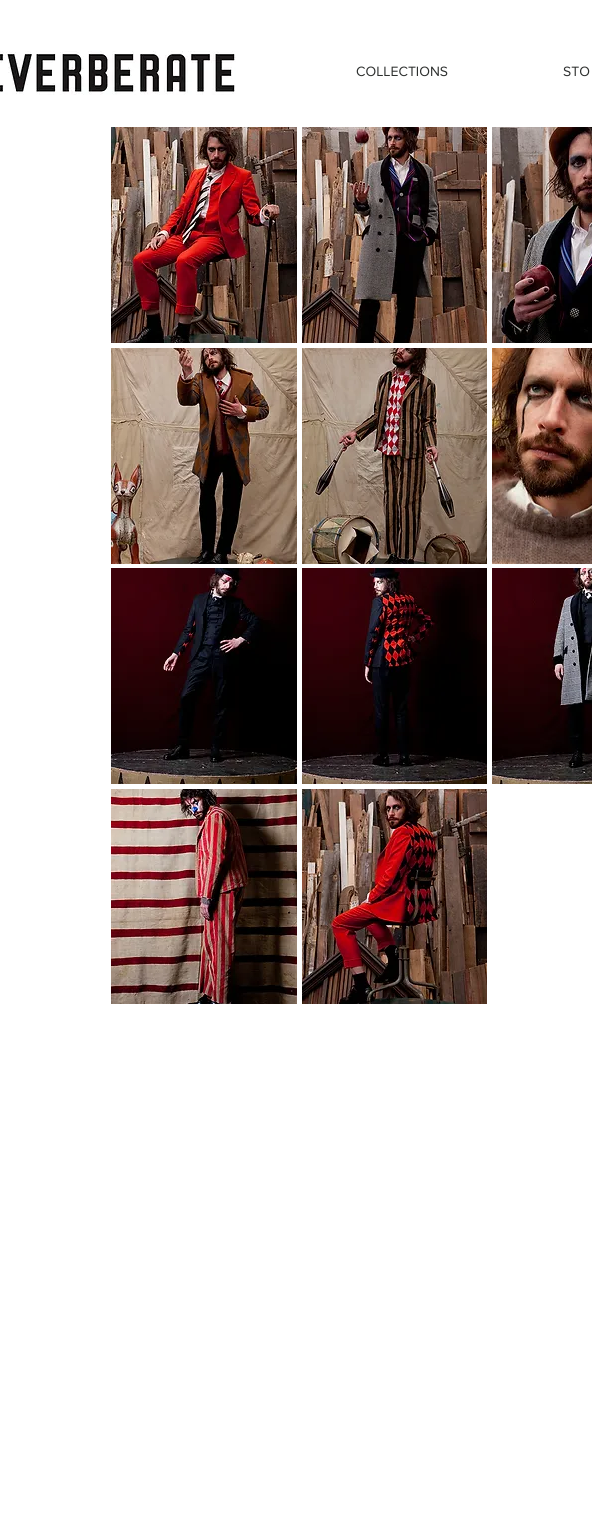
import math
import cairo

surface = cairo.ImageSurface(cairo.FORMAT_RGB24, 592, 1531)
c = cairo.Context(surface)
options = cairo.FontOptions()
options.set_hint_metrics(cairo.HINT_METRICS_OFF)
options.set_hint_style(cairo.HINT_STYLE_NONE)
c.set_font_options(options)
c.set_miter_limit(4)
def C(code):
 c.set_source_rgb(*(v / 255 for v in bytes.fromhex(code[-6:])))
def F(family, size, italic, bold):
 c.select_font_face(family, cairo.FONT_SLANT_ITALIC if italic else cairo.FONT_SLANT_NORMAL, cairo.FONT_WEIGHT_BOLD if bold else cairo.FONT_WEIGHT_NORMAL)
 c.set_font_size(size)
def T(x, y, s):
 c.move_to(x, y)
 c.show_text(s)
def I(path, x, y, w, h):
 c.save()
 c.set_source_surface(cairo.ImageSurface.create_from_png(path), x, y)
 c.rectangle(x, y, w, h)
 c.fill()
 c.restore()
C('ffffff')
c.paint()
I('1.png',0,51,236,44)
F('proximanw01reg',14,0,0)
C('2e302f')
T(356,76,'COLLECTIONS')
T(563,76,'STO')
I('2.png',111,127,186,216)
I('3.png',302,127,185,216)
I('4.png',492,127,100,216)
I('5.png',111,348,186,216)
I('6.png',302,348,185,216)
I('7.png',492,348,100,216)
I('8.png',111,568,186,216)
I('9.png',302,568,185,216)
I('10.png',492,568,100,216)
I('11.png',111,789,186,215)
I('12.png',302,789,185,215)
surface.write_to_png('o.png')
